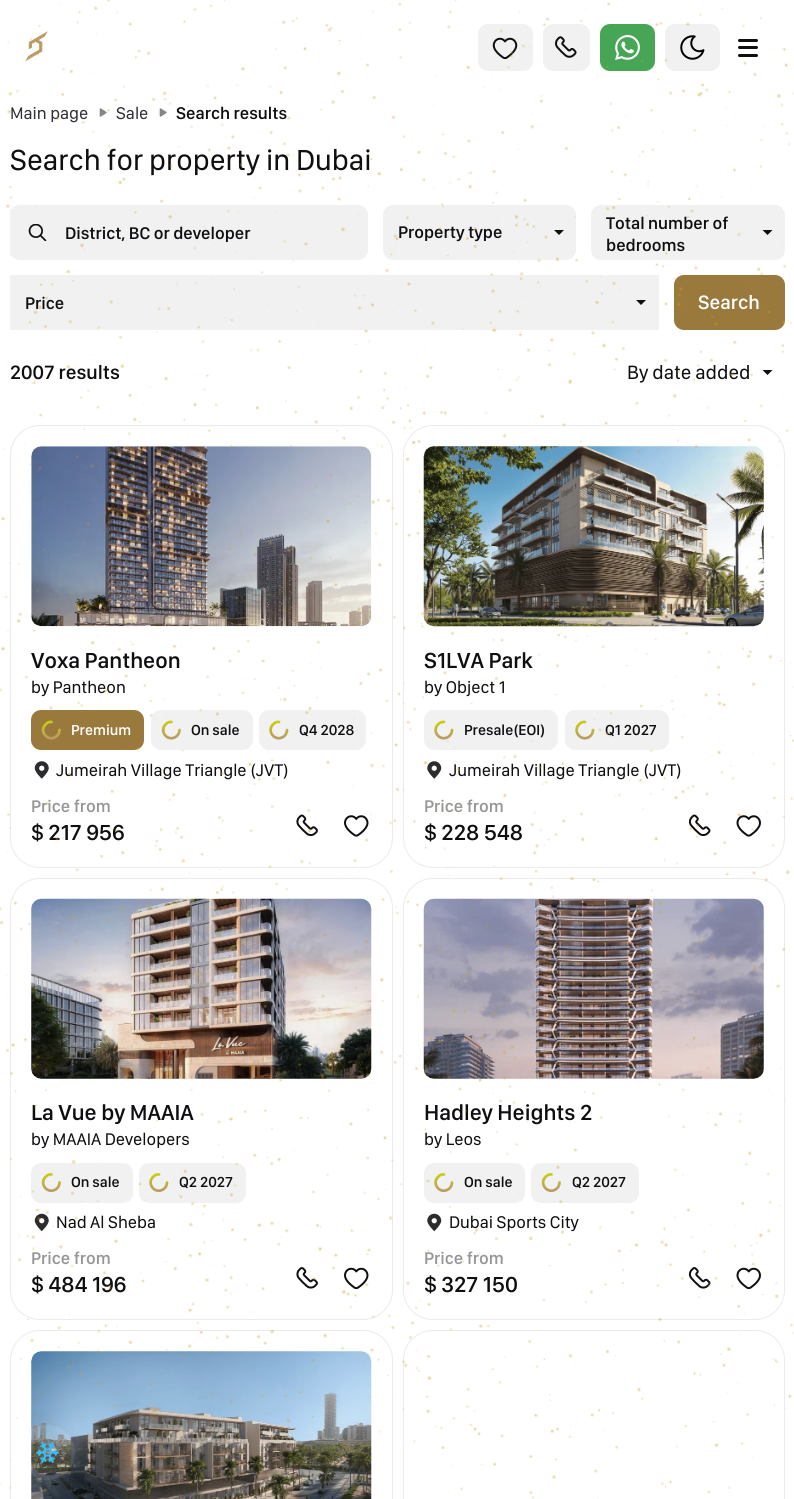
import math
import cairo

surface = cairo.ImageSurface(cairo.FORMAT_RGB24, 794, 1499)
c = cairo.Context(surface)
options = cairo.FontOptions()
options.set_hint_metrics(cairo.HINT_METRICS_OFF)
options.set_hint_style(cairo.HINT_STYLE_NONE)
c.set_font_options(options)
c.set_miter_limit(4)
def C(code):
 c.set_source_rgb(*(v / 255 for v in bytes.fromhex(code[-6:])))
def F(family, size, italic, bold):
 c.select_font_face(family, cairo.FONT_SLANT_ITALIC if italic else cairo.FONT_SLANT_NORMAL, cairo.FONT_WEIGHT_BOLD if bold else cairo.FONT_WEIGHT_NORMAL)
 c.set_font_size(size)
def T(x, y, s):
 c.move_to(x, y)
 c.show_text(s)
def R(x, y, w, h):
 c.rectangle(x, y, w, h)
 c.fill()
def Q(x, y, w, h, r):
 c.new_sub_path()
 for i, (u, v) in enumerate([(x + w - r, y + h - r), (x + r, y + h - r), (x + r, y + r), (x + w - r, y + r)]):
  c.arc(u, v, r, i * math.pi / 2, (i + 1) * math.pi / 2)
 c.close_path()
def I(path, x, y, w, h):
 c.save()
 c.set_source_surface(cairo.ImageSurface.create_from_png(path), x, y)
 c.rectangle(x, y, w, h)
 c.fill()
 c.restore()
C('ffffff')
c.paint()
I('2.png',25,31,23,31)
C('f1f1f2')
Q(478,24,55,47,10)
c.fill()
I('3.png',492,37,26,23)
Q(543,24,47,47,10)
c.fill()
I('4.png',555,36,22,22)
C('47a656')
Q(600,24,55,47,10)
c.fill()
I('5.png',615,35,25,25)
C('f1f1f2')
Q(665,24,55,47,10)
c.fill()
I('6.png',680,35,25,25)
C('0f0f12')
Q(738,39,20,3,1.5)
c.fill()
Q(738,46,20,3,1.5)
c.fill()
Q(738,54,20,3,1.5)
c.fill()
F('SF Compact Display',17.5,0,0)
C('303036')
T(10,119,'Main page')
I('7.png',99,108,8,9)
T(116,119,'Sale')
I('7.png',159,108,8,9)
F('SF Compact Display Medium',17.5,0,0)
C('0f0f12')
T(176,119,'Search results')
F('SF Compact Display',30,0,0)
T(10,170,'Search for property in Dubai')
C('f1f1f2')
Q(10,205,358,55,10)
c.fill()
c.new_path()
c.move_to(10,209)
c.line_to(358,209)
c.curve_to(363.5,209,368,213.5,368,219)
c.line_to(368,246)
c.curve_to(368,251.5,363.5,256,358,256)
c.line_to(10,256)
c.close_path()
c.fill()
I('8.png',28,224,19,17)
Q(50,209,318,47,5)
c.fill()
F('SF Compact Display Medium',17.5,0,0)
C('0f0f12')
T(65,239,'District, BC or developer')
C('f1f1f2')
Q(383,205,193,55,10)
c.fill()
C('0f0f12')
T(398,238,'Property type')
c.new_path()
c.move_to(554,230)
c.line_to(564,230)
c.line_to(559,235)
c.close_path()
c.fill()
C('f1f1f2')
Q(591,205,194,55,10)
c.fill()
C('0f0f12')
T(606,229,'Total number of')
T(606,251,'bedrooms')
c.new_path()
c.move_to(762.5,230)
c.line_to(772.5,230)
c.line_to(767.5,235)
c.close_path()
c.fill()
C('f1f1f2')
R(10,275,649,55)
C('0f0f12')
T(25,309,'Price')
c.new_path()
c.move_to(636,300)
c.line_to(646,300)
c.line_to(641,305)
c.close_path()
c.fill()
C('9a793c')
Q(674,275,111,55,10)
c.fill()
F('SF Compact Display Medium',20,0,0)
C('ffffff')
T(698,309,'Search')
C('0f0f12')
T(10,379,'2007 results')
F('SF Compact Display',20,0,0)
T(627,379,'By date added')
c.new_path()
c.move_to(762.5,370)
c.line_to(772.5,370)
c.line_to(767.5,375)
c.close_path()
c.fill()
Q(10.5,425.5,382,442,29.5)
C('ebebeb')
c.set_line_width(1)
c.stroke()
I('9.png',31,446,341,181)
F('SF Compact Display Medium',22.5,0,0)
C('0f0f12')
T(31,668,'Voxa Pantheon')
F('SF Compact Display',17.5,0,0)
T(31,693,'by Pantheon')
C('9a793c')
Q(31,710,113,40,10)
c.fill()
c.new_path()
c.move_to(51.5,722)
c.curve_to(49.5,721.5,47.5,722.5,46,724)
c.curve_to(38.5,730.5,47,742,55.5,737)
c.curve_to(58,735.5,59.5,733,59.5,730)
gradient = cairo.LinearGradient(51,738,51,722)
gradient.add_color_stop_rgba(0,0.729,0.612,0.392,1)
gradient.add_color_stop_rgba(1,0.792,0.8,0.067,1)
c.set_source(gradient)
c.set_line_width(2.7)
c.set_line_cap(cairo.LINE_CAP_ROUND)
c.set_line_join(cairo.LINE_JOIN_ROUND)
c.stroke()
F('SF Compact Display Medium',15,0,0)
C('ffffff')
T(71,735,'Premium')
C('f1f1f2')
Q(151,710,102,40,10)
c.fill()
c.new_path()
c.move_to(171.5,722)
c.curve_to(169.5,721.5,167.5,722.5,166,724)
c.curve_to(158.5,730.5,167,742,175.5,737)
c.curve_to(178,735.5,179.5,733,179.5,730)
gradient = cairo.LinearGradient(171,738,171,722)
gradient.add_color_stop_rgba(0,0.729,0.612,0.392,1)
gradient.add_color_stop_rgba(1,0.792,0.8,0.067,1)
c.set_source(gradient)
c.stroke()
C('0f0f12')
T(191,735,'On sale')
C('f1f1f2')
Q(259,710,107,40,10)
c.fill()
c.new_path()
c.move_to(279,722)
c.curve_to(277,721.5,275,722.5,273.5,724)
c.curve_to(266,730.5,274.5,742,283,737)
c.curve_to(285.5,735.5,287,733,287,730)
gradient = cairo.LinearGradient(279,738,279,722)
gradient.add_color_stop_rgba(0,0.729,0.612,0.392,1)
gradient.add_color_stop_rgba(1,0.792,0.8,0.067,1)
c.set_source(gradient)
c.stroke()
C('0f0f12')
T(299,735,'Q4 2028')
I('10.png',34,761,15,18)
F('SF Compact Display',17.5,0,0)
T(56,776,'Jumeirah Village Triangle (JVT)')
F('SF Compact Display Medium',17.5,0,0)
C('969696')
T(31,812,'Price from')
F('SF Compact Display Medium',22.5,0,0)
C('0f0f12')
T(31,840,'$ 217 956')
I('11.png',296,814,22,23)
I('12.png',344,815,25,22)
Q(403.5,425.5,381,442,29.5)
C('ebebeb')
c.set_line_width(1)
c.set_line_cap(cairo.LINE_CAP_BUTT)
c.set_line_join(cairo.LINE_JOIN_MITER)
c.stroke()
I('13.png',423,446,341,181)
C('0f0f12')
T(424,668,'S1LVA Park')
F('SF Compact Display',17.5,0,0)
T(424,693,'by Object 1')
C('f1f1f2')
Q(424,710,134,40,10)
c.fill()
c.new_path()
c.move_to(444,722)
c.curve_to(442,721.5,440,722.5,438.5,724)
c.curve_to(431,730.5,439.5,742,448,737)
c.curve_to(450.5,735.5,452,733,452,730)
gradient = cairo.LinearGradient(444,738,444,722)
gradient.add_color_stop_rgba(0,0.729,0.612,0.392,1)
gradient.add_color_stop_rgba(1,0.792,0.8,0.067,1)
c.set_source(gradient)
c.set_line_width(2.7)
c.set_line_cap(cairo.LINE_CAP_ROUND)
c.set_line_join(cairo.LINE_JOIN_ROUND)
c.stroke()
F('SF Compact Display Medium',15,0,0)
C('0f0f12')
T(464,735,'Presale(EOI)')
C('f1f1f2')
Q(565,710,104,40,10)
c.fill()
c.new_path()
c.move_to(585,722)
c.curve_to(583,721.5,581,722.5,579.5,724)
c.curve_to(572,730.5,580.5,742,589,737)
c.curve_to(591.5,735.5,593,733,593,730)
gradient = cairo.LinearGradient(585,738,585,722)
gradient.add_color_stop_rgba(0,0.729,0.612,0.392,1)
gradient.add_color_stop_rgba(1,0.792,0.8,0.067,1)
c.set_source(gradient)
c.stroke()
C('0f0f12')
T(605,735,'Q1 2027')
I('14.png',427,761,15,18)
F('SF Compact Display',17.5,0,0)
T(449,776,'Jumeirah Village Triangle (JVT)')
F('SF Compact Display Medium',17.5,0,0)
C('969696')
T(424,812,'Price from')
F('SF Compact Display Medium',22.5,0,0)
C('0f0f12')
T(424,840,'$ 228 548')
I('15.png',688,814,23,23)
I('16.png',736,815,25,22)
Q(10.5,878.5,382,441,29.5)
C('ebebeb')
c.set_line_width(1)
c.set_line_cap(cairo.LINE_CAP_BUTT)
c.set_line_join(cairo.LINE_JOIN_MITER)
c.stroke()
I('17.png',31,898,341,181)
C('0f0f12')
T(31,1120,'La Vue by MAAIA')
F('SF Compact Display',17.5,0,0)
T(31,1145,'by MAAIA Developers')
C('f1f1f2')
Q(31,1163,102,40,10)
c.fill()
c.new_path()
c.move_to(51.5,1174.5)
c.curve_to(49.5,1174,47.5,1175,46,1176.5)
c.curve_to(38.5,1183,47,1194.5,55.5,1189.5)
c.curve_to(58,1188,59.5,1185.5,59.5,1182.5)
gradient = cairo.LinearGradient(51,1191,51,1174)
gradient.add_color_stop_rgba(0,0.729,0.612,0.392,1)
gradient.add_color_stop_rgba(1,0.792,0.8,0.067,1)
c.set_source(gradient)
c.set_line_width(2.7)
c.set_line_cap(cairo.LINE_CAP_ROUND)
c.set_line_join(cairo.LINE_JOIN_ROUND)
c.stroke()
F('SF Compact Display Medium',15,0,0)
C('0f0f12')
T(71,1187,'On sale')
C('f1f1f2')
Q(139,1163,107,40,10)
c.fill()
c.new_path()
c.move_to(159,1174.5)
c.curve_to(157,1174,155,1175,153.5,1176.5)
c.curve_to(146,1183,154.5,1194.5,163,1189.5)
c.curve_to(165.5,1188,167,1185.5,167,1182.5)
gradient = cairo.LinearGradient(159,1191,159,1174)
gradient.add_color_stop_rgba(0,0.729,0.612,0.392,1)
gradient.add_color_stop_rgba(1,0.792,0.8,0.067,1)
c.set_source(gradient)
c.stroke()
C('0f0f12')
T(179,1187,'Q2 2027')
I('18.png',34,1213,15,19)
F('SF Compact Display',17.5,0,0)
T(56,1228,'Nad Al Sheba')
F('SF Compact Display Medium',17.5,0,0)
C('969696')
T(31,1264,'Price from')
F('SF Compact Display Medium',22.5,0,0)
C('0f0f12')
T(31,1292,'$ 484 196')
I('19.png',296,1267,22,22)
I('20.png',344,1267,25,23)
Q(403.5,878.5,381,441,29.5)
C('ebebeb')
c.set_line_width(1)
c.set_line_cap(cairo.LINE_CAP_BUTT)
c.set_line_join(cairo.LINE_JOIN_MITER)
c.stroke()
I('21.png',423,898,341,181)
C('0f0f12')
T(424,1120,'Hadley Heights 2')
F('SF Compact Display',17.5,0,0)
T(424,1145,'by Leos')
C('f1f1f2')
Q(424,1163,101,40,10)
c.fill()
c.new_path()
c.move_to(444,1174.5)
c.curve_to(442,1174,440,1175,438.5,1176.5)
c.curve_to(431,1183,439.5,1194.5,448,1189.5)
c.curve_to(450.5,1188,452,1185.5,452,1182.5)
gradient = cairo.LinearGradient(444,1191,444,1174)
gradient.add_color_stop_rgba(0,0.729,0.612,0.392,1)
gradient.add_color_stop_rgba(1,0.792,0.8,0.067,1)
c.set_source(gradient)
c.set_line_width(2.7)
c.set_line_cap(cairo.LINE_CAP_ROUND)
c.set_line_join(cairo.LINE_JOIN_ROUND)
c.stroke()
F('SF Compact Display Medium',15,0,0)
C('0f0f12')
T(464,1187,'On sale')
C('f1f1f2')
Q(531,1163,108,40,10)
c.fill()
c.new_path()
c.move_to(551.5,1174.5)
c.curve_to(549.5,1174,547.5,1175,546,1176.5)
c.curve_to(538.5,1183,547,1194.5,555.5,1189.5)
c.curve_to(558,1188,559.5,1185.5,559.5,1182.5)
gradient = cairo.LinearGradient(551,1191,551,1174)
gradient.add_color_stop_rgba(0,0.729,0.612,0.392,1)
gradient.add_color_stop_rgba(1,0.792,0.8,0.067,1)
c.set_source(gradient)
c.stroke()
C('0f0f12')
T(572,1187,'Q2 2027')
I('22.png',427,1213,15,19)
F('SF Compact Display',17.5,0,0)
T(449,1228,'Dubai Sports City')
F('SF Compact Display Medium',17.5,0,0)
C('969696')
T(424,1264,'Price from')
F('SF Compact Display Medium',22.5,0,0)
C('0f0f12')
T(424,1292,'$ 327 150')
I('23.png',688,1267,23,22)
I('24.png',736,1267,25,23)
Q(10.5,1330.5,382,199,29.5)
C('ebebeb')
c.set_line_width(1)
c.set_line_cap(cairo.LINE_CAP_BUTT)
c.set_line_join(cairo.LINE_JOIN_MITER)
c.stroke()
I('25.png',31,1351,341,148)
Q(403.5,1330.5,381,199,29.5)
c.stroke()
c.set_source_rgba(1,1,1,0.1)
c.arc(47.5,1452.5,27.5,0,2 * math.pi)
c.fill()
I('26.png',36,1442,23,21)
I('1.png',0,0,794,1499)
surface.write_to_png('o.png')
